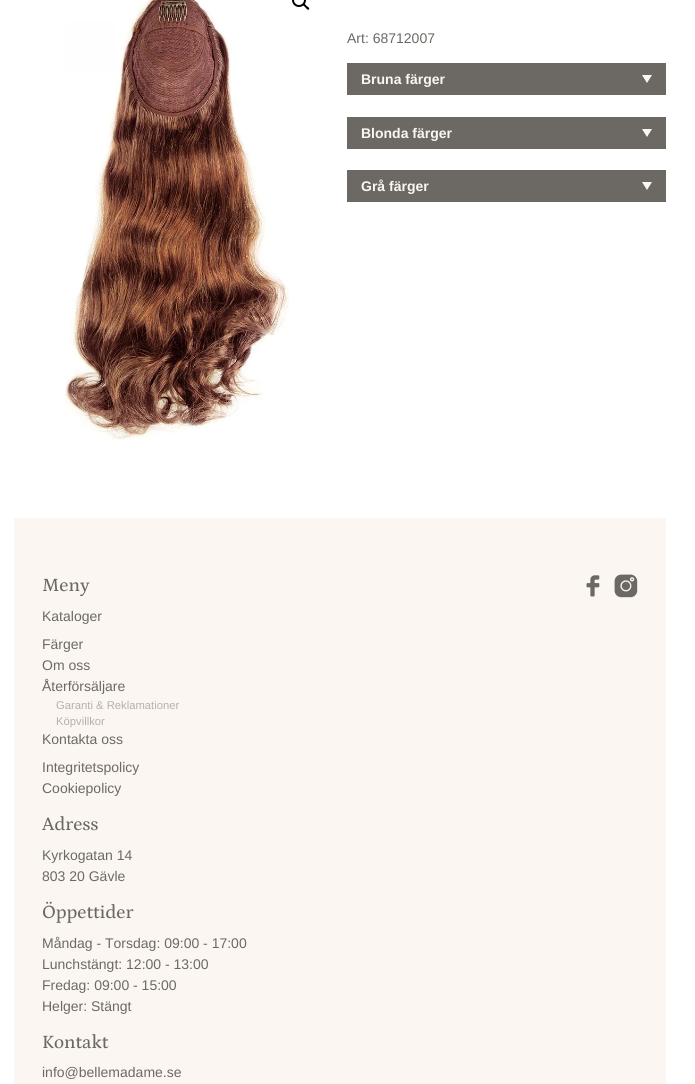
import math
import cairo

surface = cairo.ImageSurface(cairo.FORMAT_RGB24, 695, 1084)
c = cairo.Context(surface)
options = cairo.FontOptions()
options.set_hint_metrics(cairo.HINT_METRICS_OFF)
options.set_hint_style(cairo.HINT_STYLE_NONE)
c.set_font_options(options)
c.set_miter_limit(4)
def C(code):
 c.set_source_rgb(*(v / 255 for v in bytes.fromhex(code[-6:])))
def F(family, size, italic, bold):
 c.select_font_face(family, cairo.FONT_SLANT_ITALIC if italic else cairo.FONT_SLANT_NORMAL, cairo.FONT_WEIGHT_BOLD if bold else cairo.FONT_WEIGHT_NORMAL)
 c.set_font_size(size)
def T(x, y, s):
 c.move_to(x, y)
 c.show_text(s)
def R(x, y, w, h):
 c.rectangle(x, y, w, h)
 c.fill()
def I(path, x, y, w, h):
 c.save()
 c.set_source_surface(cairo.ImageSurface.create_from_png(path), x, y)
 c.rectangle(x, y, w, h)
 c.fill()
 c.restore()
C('ffffff')
c.paint()
I('1.png',65,0,225,441)
c.arc(299,0,6,0,2 * math.pi)
C('000000')
c.stroke()
c.new_path()
c.move_to(303,4)
c.curve_to(304.5,2.5,306,5.5,306.5,6)
c.curve_to(307.5,6.5,310,8,309,9.5)
c.curve_to(307.5,10.5,306,8,305.5,7.5)
c.curve_to(304.5,6.5,302,5,303,4)
c.close_path()
c.fill()
F('Liberation Sans',14,0,0)
C('6c6965')
T(347,43,'Art: 68712007')
R(347,63,319,32)
F('Liberation Sans',14,0,1)
C('fbf6f1')
T(361,84,'Bruna färger')
c.new_path()
c.move_to(642,75)
c.line_to(652,75)
c.line_to(647,83)
c.close_path()
c.fill()
C('6c6965')
R(347,117,319,32)
C('fbf6f1')
T(361,138,'Blonda färger')
c.new_path()
c.move_to(642,129)
c.line_to(652,129)
c.line_to(647,137)
c.close_path()
c.fill()
C('6c6965')
R(347,170,319,32)
C('fbf6f1')
T(361,191,'Grå färger')
c.new_path()
c.move_to(642,182)
c.line_to(652,182)
c.line_to(647,190)
c.close_path()
c.fill()
R(14,518,652,566)
F('Petrona Medium',19,0,0)
C('6c6965')
T(42,591,'Meny')
F('Liberation Sans',14,0,0)
T(42,621,'Kataloger')
T(42,649,'Färger')
T(42,670,'Om oss')
T(42,691,'Återförsäljare')
F('Liberation Sans',11.25,0,0)
C('b4b0ab')
T(56,709,'Garanti & Reklamationer')
T(56,725,'Köpvillkor')
F('Liberation Sans',14,0,0)
C('6c6965')
T(42,744,'Kontakta oss')
T(42,772,'Integritetspolicy')
T(42,793,'Cookiepolicy')
I('2.png',586,575,14,22)
I('3.png',614,574,24,24)
F('Petrona Medium',19,0,0)
T(42,830,'Adress')
F('Liberation Sans',14,0,0)
T(42,860,'Kyrkogatan 14')
T(42,881,'803 20 Gävle')
F('Petrona Medium',19,0,0)
T(42,918,'Öppettider')
F('Liberation Sans',14,0,0)
T(42,948,'Måndag - Torsdag: 09:00 - 17:00')
T(42,969,'Lunchstängt: 12:00 - 13:00')
T(42,990,'Fredag: 09:00 - 15:00')
T(42,1011,'Helger: Stängt')
F('Petrona Medium',19,0,0)
T(42,1048,'Kontakt')
F('Liberation Sans',14,0,0)
T(42,1077,'info@bellemadame.se')
surface.write_to_png('o.png')
